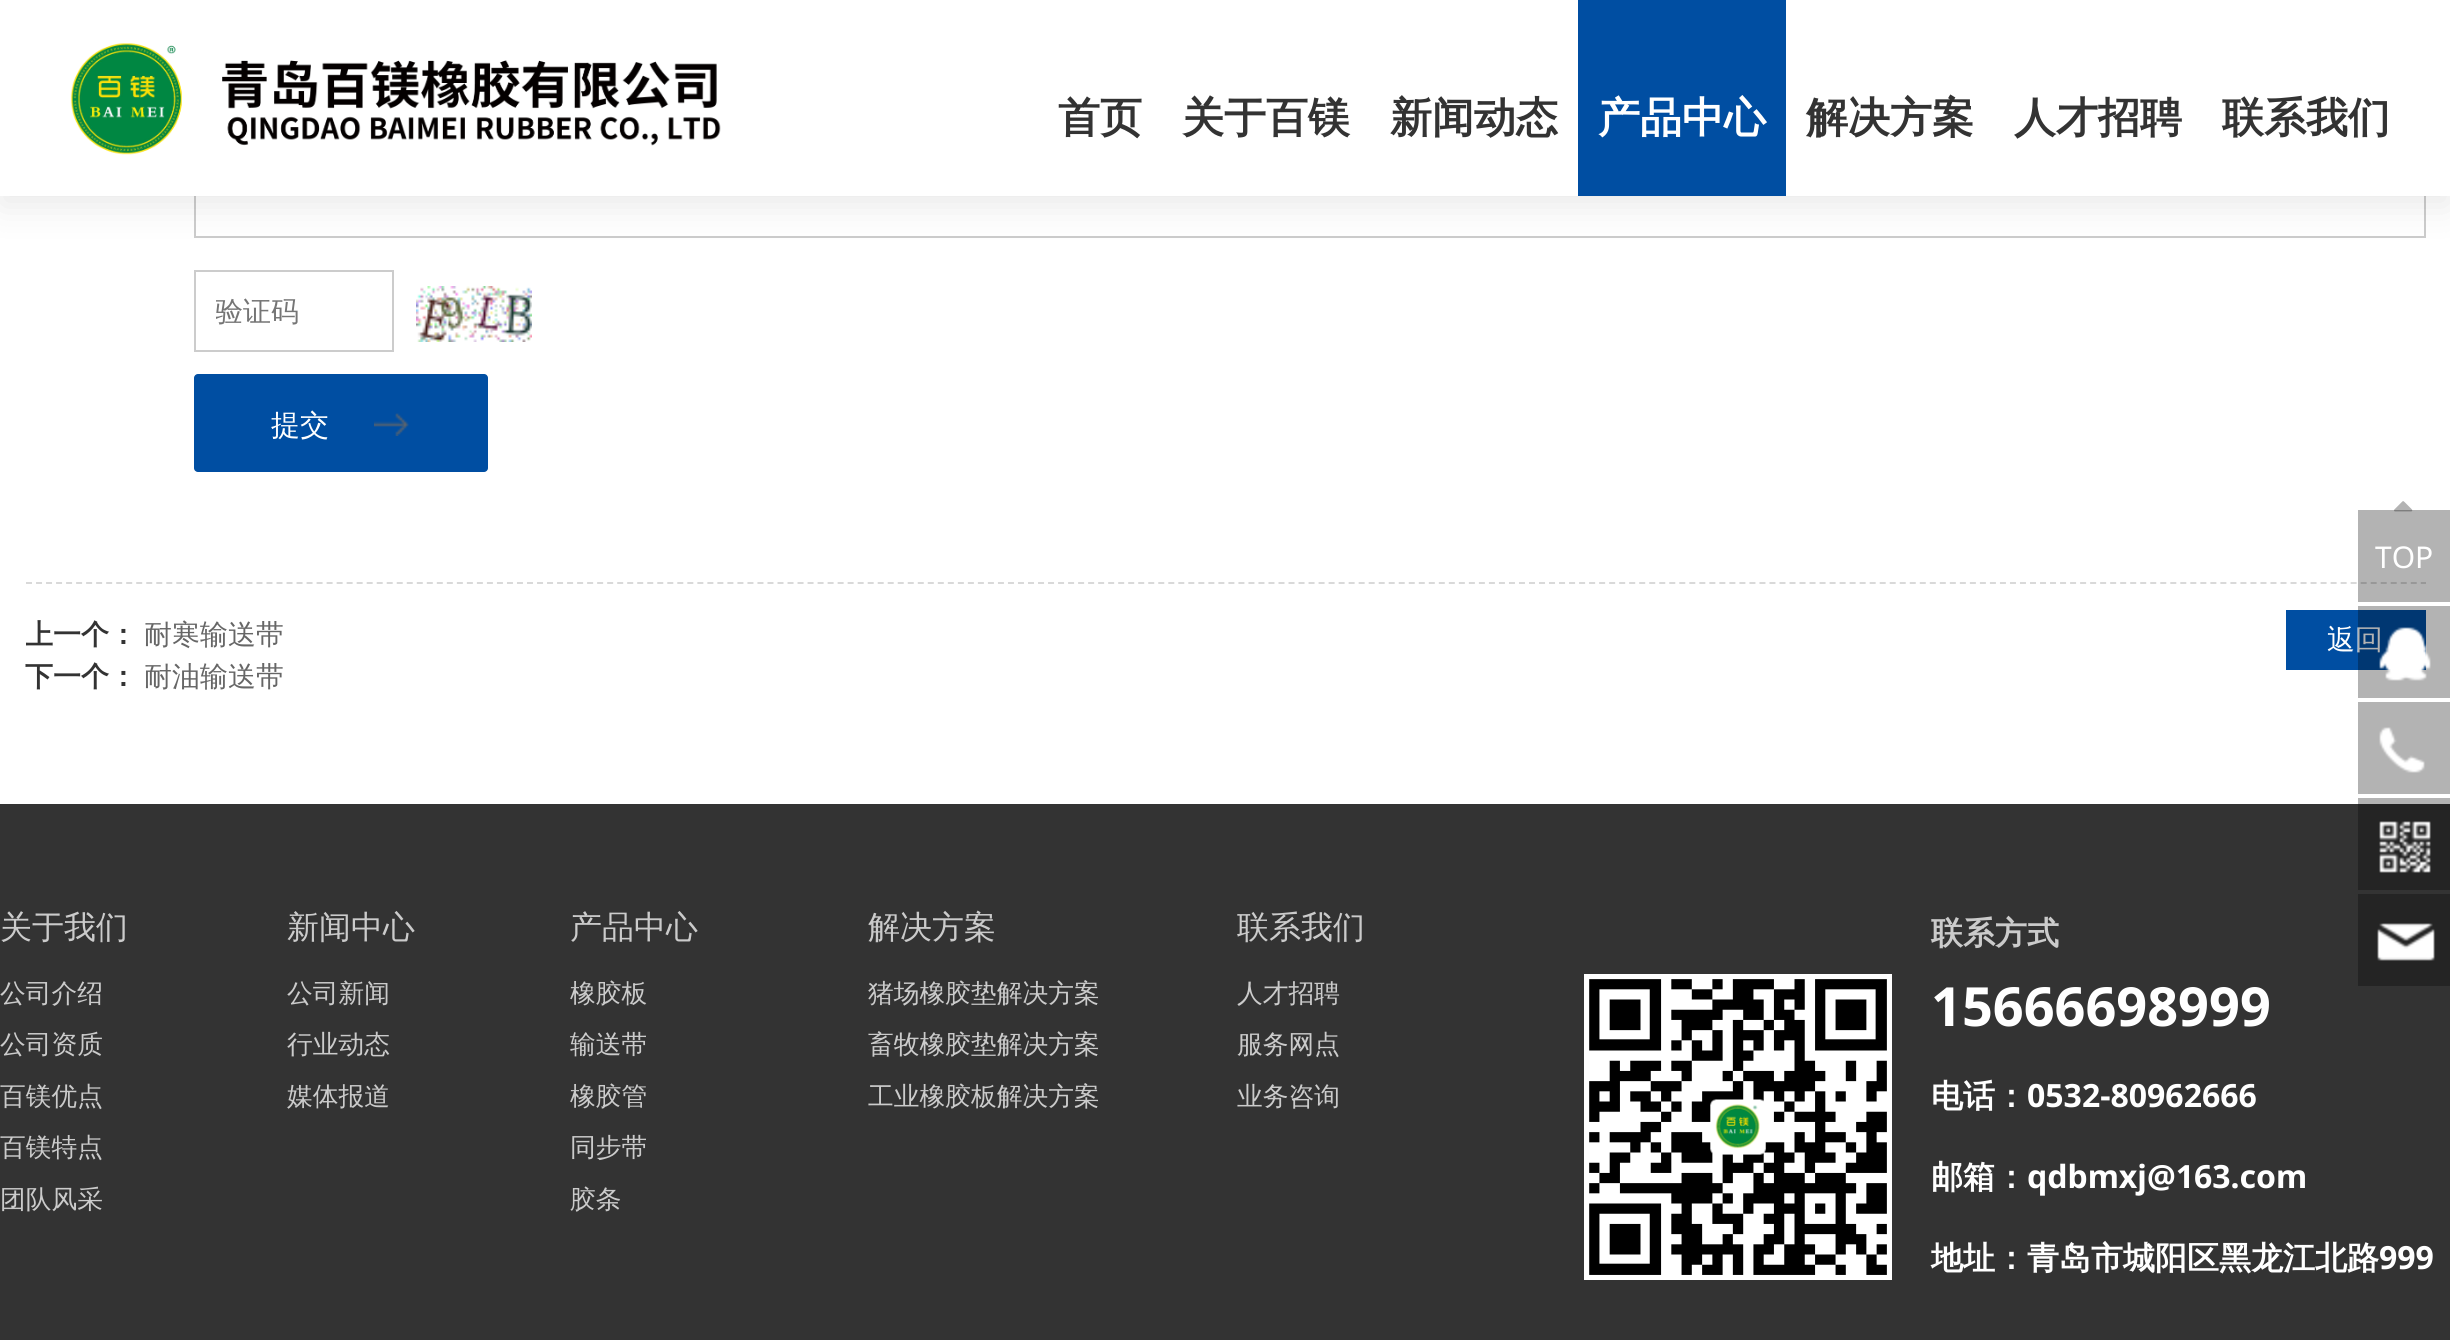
import math
import cairo

surface = cairo.ImageSurface(cairo.FORMAT_RGB24, 2450, 1340)
c = cairo.Context(surface)
options = cairo.FontOptions()
options.set_hint_metrics(cairo.HINT_METRICS_OFF)
options.set_hint_style(cairo.HINT_STYLE_NONE)
c.set_font_options(options)
c.set_miter_limit(4)
def C(code):
 c.set_source_rgb(*(v / 255 for v in bytes.fromhex(code[-6:])))
def F(family, size, italic, bold):
 c.select_font_face(family, cairo.FONT_SLANT_ITALIC if italic else cairo.FONT_SLANT_NORMAL, cairo.FONT_WEIGHT_BOLD if bold else cairo.FONT_WEIGHT_NORMAL)
 c.set_font_size(size)
def T(x, y, s):
 c.move_to(x, y)
 c.show_text(s)
def R(x, y, w, h):
 c.rectangle(x, y, w, h)
 c.fill()
def Q(x, y, w, h, r):
 c.new_sub_path()
 for i, (u, v) in enumerate([(x + w - r, y + h - r), (x + r, y + h - r), (x + r, y + r), (x + w - r, y + r)]):
  c.arc(u, v, r, i * math.pi / 2, (i + 1) * math.pi / 2)
 c.close_path()
def S(x, y, w, h, r, blur, alpha):
 c.push_group_with_content(cairo.CONTENT_ALPHA)
 c.set_operator(cairo.OPERATOR_SOURCE)
 for i in range(15, -16, -2):
  e = blur * i / 6
  if min(w, h) + 2 * e > 0:
   c.set_source_rgba(0, 0, 0, alpha * math.erfc((i - 1) / 8.5) / 2)
   Q(x - e, y - e, w + 2 * e, h + 2 * e, max(0, min(r + e + blur * .6, min(w, h) / 2 + e)))
   c.fill()
 c.mask(c.pop_group())
def I(path, x, y, w, h):
 c.save()
 c.set_source_surface(cairo.ImageSurface.create_from_png(path), x, y)
 c.rectangle(x, y, w, h)
 c.fill()
 c.restore()
C('ffffff')
c.paint()
C('b3b3b3')
R(2358,798,92,6)
c.rectangle(195,15,2230,222)
C('cccccc')
c.stroke()
C('000000')
S(0,10,2450,196,0,18,.09)
C('ffffff')
R(0,0,2450,196)
I('1.png',70,43,651,112)
F('WenQuanYi Zen Hei',42,0,1)
C('333333')
T(1058,132,'首页')
T(1182,132,'关于百镁')
T(1390,132,'新闻动态')
C('004ea2')
R(1578,0,208,196)
C('ffffff')
T(1598,132,'产品中心')
C('333333')
T(1806,132,'解决方案')
T(2014,132,'人才招聘')
T(2222,132,'联系我们')
c.rectangle(195,271,198,80)
C('cccccc')
c.stroke()
c.save()
c.rectangle(216,290,156,40)
c.clip()
F('WenQuanYi Zen Hei Medium',28,0,0)
C('757575')
T(215,321,'验证码')
c.restore()
I('2.png',416,286,116,56)
C('004ea2')
Q(194,374,294,98,4)
c.fill()
F('WenQuanYi Zen Hei Medium',29,0,0)
C('ffffff')
T(271,435,'提交')
I('3.png',374,413,35,23)
c.new_path()
c.move_to(26,583)
c.line_to(2426,583)
C('d9d9d9')
c.set_dash([6,4.02])
c.stroke()
c.save()
c.rectangle(26,612,2092,42)
c.clip()
F('WenQuanYi Zen Hei',28,0,1)
C('333333')
T(25,644,'上一个：')
c.restore()
F('WenQuanYi Zen Hei Medium',28,0,0)
C('666666')
T(144,644,'耐寒输送带')
F('WenQuanYi Zen Hei',28,0,1)
C('333333')
T(25,686,'下一个：')
F('WenQuanYi Zen Hei Medium',28,0,0)
C('666666')
T(144,686,'耐油输送带')
C('004ea2')
R(2286,610,140,60)
C('ffffff')
T(2327,649,'返回')
C('333333')
R(0,804,2450,536)
C('242424')
R(2358,804,92,86)
c.set_source_rgba(0,0,0,0.3)
R(2358,510,92,92)
I('4.png',2394,501,19,11)
F('Noto Sans',30,0,0)
C('ffffff')
T(2375,568,'TOP')
c.set_source_rgba(0,0,0,0.3)
R(2358,606,92,92)
I('5.png',2379,627,52,54)
C('b3b3b3')
R(2358,702,92,92)
I('6.png',2379,727,46,46)
I('7.png',2379,821,52,52)
C('242424')
R(2358,894,92,92)
I('8.png',2377,923,58,38)
F('WenQuanYi Zen Hei Medium',32,0,0)
C('cbcbcb')
T(0,938,'关于我们')
F('WenQuanYi Zen Hei Medium',25.75,0,0)
T(0,1002,'公司介绍')
T(0,1053,'公司资质')
T(0,1105,'百镁优点')
T(0,1156,'百镁特点')
T(0,1208,'团队风采')
F('WenQuanYi Zen Hei Medium',32,0,0)
T(287,938,'新闻中心')
F('WenQuanYi Zen Hei Medium',25.75,0,0)
T(287,1002,'公司新闻')
T(287,1053,'行业动态')
T(287,1105,'媒体报道')
F('WenQuanYi Zen Hei Medium',32,0,0)
T(570,938,'产品中心')
F('WenQuanYi Zen Hei Medium',25.75,0,0)
T(570,1002,'橡胶板')
T(570,1053,'输送带')
T(570,1105,'橡胶管')
T(570,1156,'同步带')
T(570,1208,'胶条')
F('WenQuanYi Zen Hei Medium',32,0,0)
T(868,938,'解决方案')
F('WenQuanYi Zen Hei Medium',25.75,0,0)
T(868,1002,'猪场橡胶垫解决方案')
T(868,1053,'畜牧橡胶垫解决方案')
T(868,1105,'工业橡胶板解决方案')
F('WenQuanYi Zen Hei Medium',32,0,0)
T(1237,938,'联系我们')
F('WenQuanYi Zen Hei Medium',25.75,0,0)
T(1237,1002,'人才招聘')
T(1237,1053,'服务网点')
T(1237,1105,'业务咨询')
I('9.png',1584,974,308,306)
F('WenQuanYi Zen Hei',32,0,1)
T(1931,944,'联系方式')
F('Noto Sans',54,0,1)
C('ffffff')
T(1931,1026,'15666698999')
F('WenQuanYi Zen Hei',32,0,1)
T(1931,1107,'电话：')
F('Noto Sans',32,0,1)
T(2027,1107,'0532-80962666')
F('WenQuanYi Zen Hei',32,0,1)
T(1931,1188,'邮箱：')
F('Noto Sans',32,0,1)
T(2027,1188,'qdbmxj@163.com')
F('WenQuanYi Zen Hei',32,0,1)
T(1931,1269,'地址：青岛市城阳区黑龙江北路')
F('Noto Sans',32,0,1)
T(2379,1269,'999')
surface.write_to_png('o.png')
